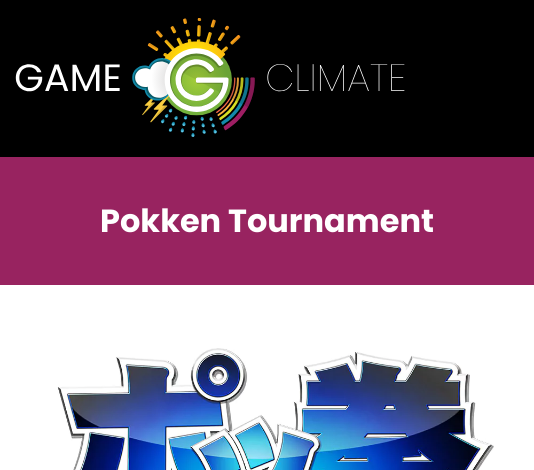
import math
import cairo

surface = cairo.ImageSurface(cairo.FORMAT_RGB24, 534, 470)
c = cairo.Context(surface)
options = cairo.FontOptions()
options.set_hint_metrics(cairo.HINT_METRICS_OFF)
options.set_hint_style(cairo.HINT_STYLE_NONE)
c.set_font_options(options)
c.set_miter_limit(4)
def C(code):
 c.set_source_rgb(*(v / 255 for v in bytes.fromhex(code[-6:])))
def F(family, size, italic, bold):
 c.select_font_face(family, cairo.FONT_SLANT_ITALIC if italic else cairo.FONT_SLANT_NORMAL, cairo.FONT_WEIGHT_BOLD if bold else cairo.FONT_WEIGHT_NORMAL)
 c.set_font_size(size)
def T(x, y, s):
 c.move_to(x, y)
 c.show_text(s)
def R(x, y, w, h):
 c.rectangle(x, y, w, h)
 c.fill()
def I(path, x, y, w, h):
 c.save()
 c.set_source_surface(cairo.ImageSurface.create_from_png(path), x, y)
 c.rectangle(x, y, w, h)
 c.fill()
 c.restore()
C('ffffff')
c.paint()
C('000000')
R(0,0,534,157)
I('1.png',15,18,390,119)
C('982360')
R(0,157,534,128)
F('Poppins',32,0,1)
C('ffffff')
T(100,232,'Pokken Tournament')
I('2.png',57,348,437,122)
surface.write_to_png('o.png')
